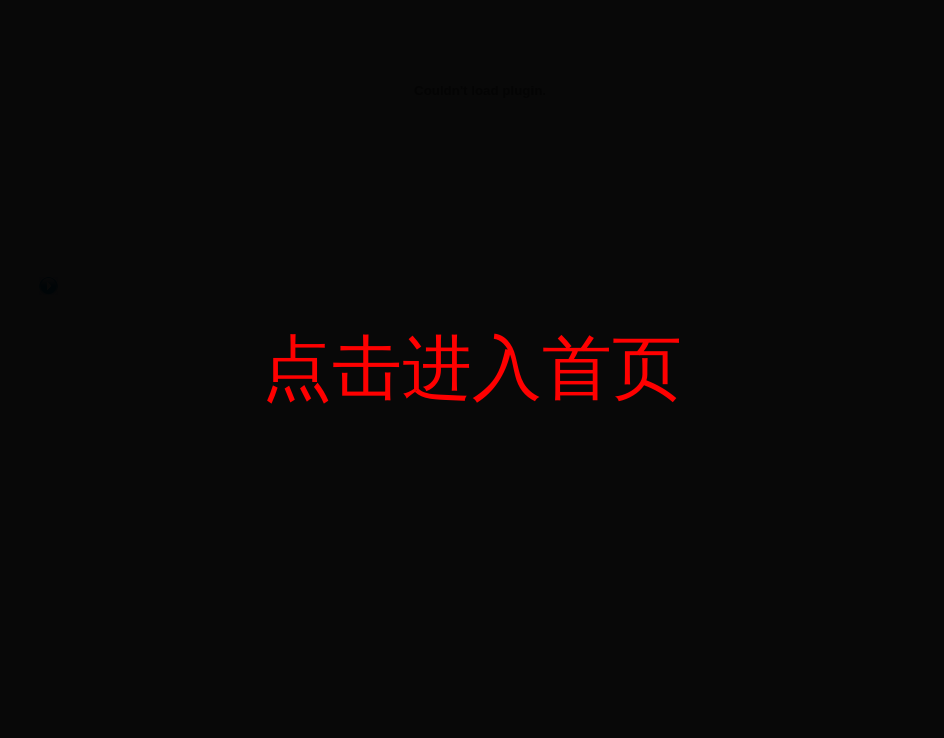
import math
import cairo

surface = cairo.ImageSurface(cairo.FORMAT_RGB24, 944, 738)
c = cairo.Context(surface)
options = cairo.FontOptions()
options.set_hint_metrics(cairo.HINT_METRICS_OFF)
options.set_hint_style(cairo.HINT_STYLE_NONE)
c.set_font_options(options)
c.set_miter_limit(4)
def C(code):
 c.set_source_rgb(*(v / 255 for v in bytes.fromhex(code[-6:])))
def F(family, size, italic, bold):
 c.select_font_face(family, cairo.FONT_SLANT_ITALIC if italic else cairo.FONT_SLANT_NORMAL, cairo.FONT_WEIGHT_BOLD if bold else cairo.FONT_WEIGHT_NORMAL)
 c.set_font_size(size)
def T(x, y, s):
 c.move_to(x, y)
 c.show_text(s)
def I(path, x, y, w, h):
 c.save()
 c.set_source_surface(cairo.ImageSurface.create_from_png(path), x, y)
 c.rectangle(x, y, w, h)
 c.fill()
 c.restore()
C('080808')
c.paint()
I('1.png',414,86,131,12)
I('2.png',39,277,19,18)
F('WenQuanYi Zen Hei Medium',70,0,0)
C('ff0000')
T(262,392,'点击进入首页')
surface.write_to_png('o.png')
